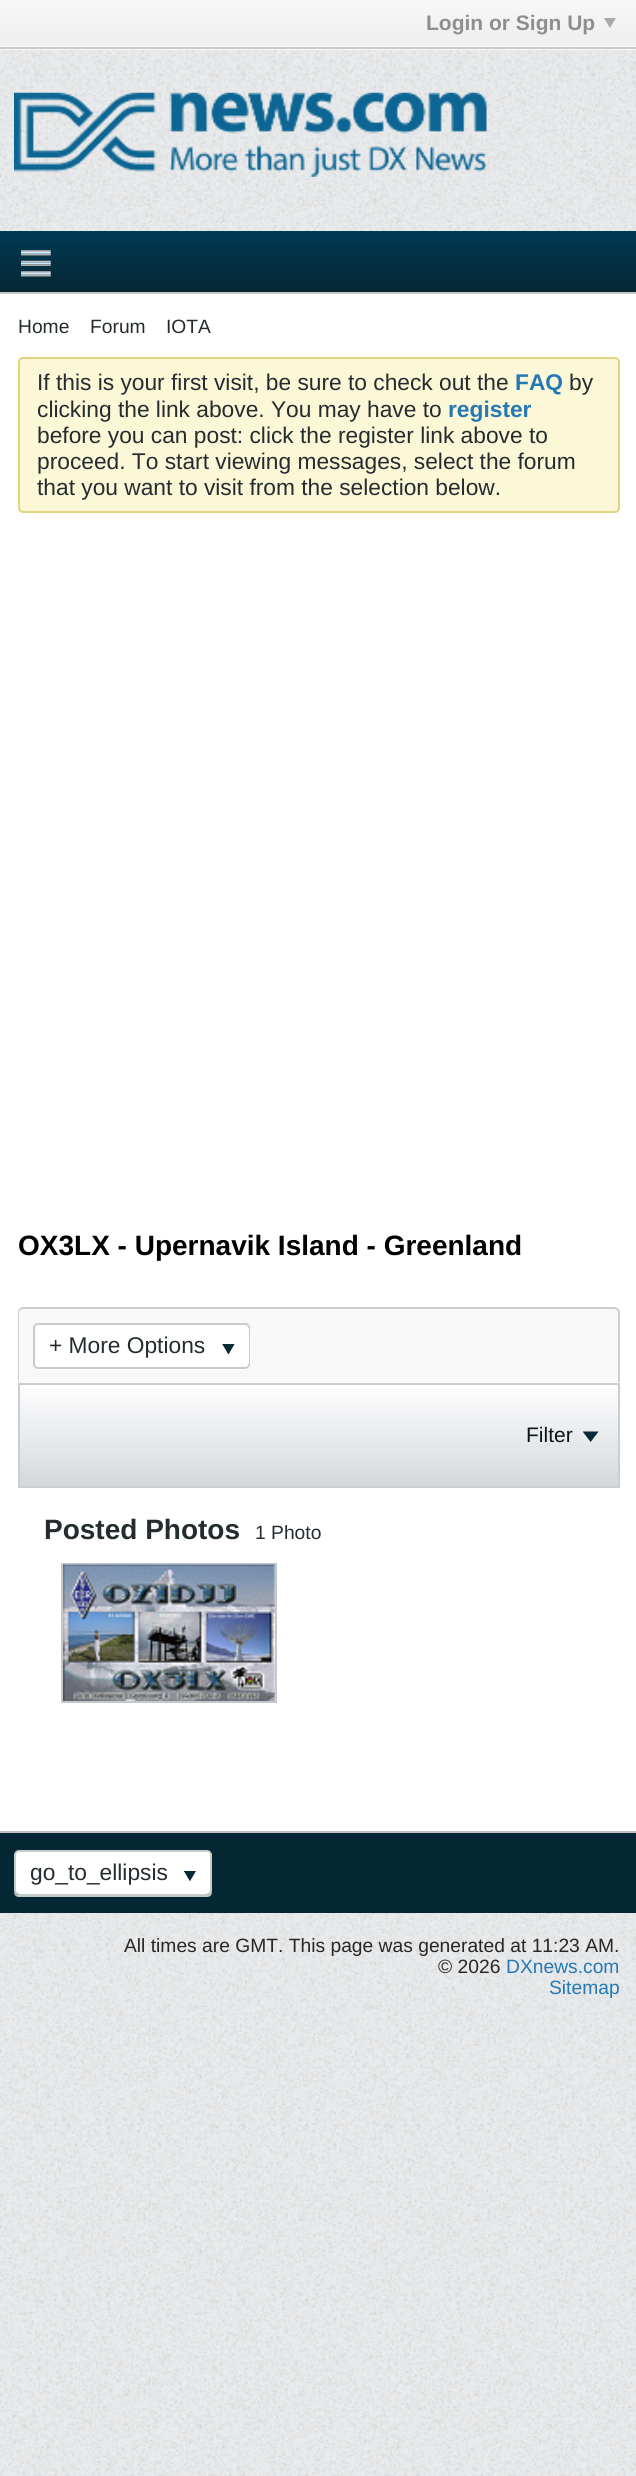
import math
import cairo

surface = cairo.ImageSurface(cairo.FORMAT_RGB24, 636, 2476)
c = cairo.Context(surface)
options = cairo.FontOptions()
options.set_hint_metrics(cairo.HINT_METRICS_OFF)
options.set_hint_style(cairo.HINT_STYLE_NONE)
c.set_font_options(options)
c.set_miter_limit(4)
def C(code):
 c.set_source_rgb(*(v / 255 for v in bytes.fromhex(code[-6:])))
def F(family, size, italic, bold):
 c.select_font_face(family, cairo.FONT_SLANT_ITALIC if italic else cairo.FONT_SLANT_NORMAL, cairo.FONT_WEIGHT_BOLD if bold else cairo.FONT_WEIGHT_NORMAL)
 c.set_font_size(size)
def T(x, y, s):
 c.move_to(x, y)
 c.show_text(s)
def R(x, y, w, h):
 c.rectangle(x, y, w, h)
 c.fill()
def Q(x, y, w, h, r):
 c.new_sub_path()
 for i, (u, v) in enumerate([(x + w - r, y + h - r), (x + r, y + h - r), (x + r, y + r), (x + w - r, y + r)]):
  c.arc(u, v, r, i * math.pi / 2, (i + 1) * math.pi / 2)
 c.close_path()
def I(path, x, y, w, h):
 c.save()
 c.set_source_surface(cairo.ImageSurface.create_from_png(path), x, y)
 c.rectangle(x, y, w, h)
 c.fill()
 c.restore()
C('eaebec')
c.paint()
I('1.png',0,1913,636,563)
gradient = cairo.LinearGradient(319,0,319,49)
gradient.add_color_stop_rgba(0,0.973,0.973,0.973,1)
gradient.add_color_stop_rgba(1,0.937,0.929,0.933,1)
c.set_source(gradient)
R(0,0,636,46)
F('Liberation Sans',21,0,1)
C('8e8e8e')
T(426,30,'Login or Sign Up')
I('2.png',604,18,12,10)
C('fafafa')
R(0,46,636,4)
C('c7c8c9')
R(0,47,636,2)
I('3.png',0,50,636,181)
I('4.png',14,92,473,85)
gradient = cairo.LinearGradient(319,231,319,292)
gradient.add_color_stop_rgba(0,0.004,0.227,0.329,1)
gradient.add_color_stop_rgba(1,0.02,0.153,0.2,1)
c.set_source(gradient)
R(0,231,636,61)
C('c4c7c8')
R(0,292,636,2)
I('5.png',21,250,30,27)
C('ffffff')
R(0,294,636,1537)
F('Liberation Sans',19.25,0,0)
C('252c2f')
T(18,333,'Home')
T(90,333,'Forum')
T(166,333,'IOTA')
C('fcf7d7')
Q(19,358,600,154,4)
c.fill_preserve()
C('e1d47e')
c.stroke()
F('Liberation Sans',22.75,0,0)
C('252c2f')
T(37,390,'If this is your first visit, be sure to check out the')
F('Liberation Sans',22.75,0,1)
C('2379b5')
T(515,390,'FAQ')
F('Liberation Sans',22.75,0,0)
C('252c2f')
T(569,390,'by')
T(37,417,'clicking the link above. You may have to')
F('Liberation Sans',22.75,0,1)
C('2379b5')
T(448,417,'register')
F('Liberation Sans',22.75,0,0)
C('252c2f')
T(37,443,'before you can post: click the register link above to')
T(37,469,'proceed. To start viewing messages, select the forum')
T(37,495,'that you want to visit from the selection below.')
F('Liberation Sans',28,0,1)
C('000000')
T(18,1255,'OX3LX - Upernavik Island - Greenland')
C('f8f8f8')
c.new_path()
c.move_to(23,1307)
c.line_to(615,1307)
c.curve_to(618,1307,620,1309,620,1312)
c.line_to(620,1383)
c.line_to(18,1383)
c.line_to(18,1312)
c.curve_to(18,1309,20,1307,23,1307)
c.close_path()
c.fill()
C('c9ced2')
c.set_fill_rule(cairo.FILL_RULE_EVEN_ODD)
c.new_path()
c.move_to(23,1307)
c.line_to(614,1307)
c.curve_to(617,1307,620,1310,620,1312)
c.line_to(620,1382)
c.line_to(18,1382)
c.line_to(18,1312)
c.curve_to(18,1310,20,1307,23,1307)
c.close_path()
c.move_to(23,1309)
c.line_to(614,1309)
c.curve_to(616,1309,618,1311,618,1312)
c.line_to(618,1382)
c.line_to(19,1382)
c.line_to(19,1312)
c.curve_to(19,1311,21,1309,23,1309)
c.close_path()
c.fill()
C('fdfdfd')
c.set_fill_rule(cairo.FILL_RULE_WINDING)
c.new_path()
c.move_to(33,1328)
c.line_to(33,1359)
c.curve_to(33,1363,32,1370,38,1370)
c.line_to(210,1370)
c.curve_to(219,1370,250,1376,250,1365)
c.curve_to(249,1367,247,1368,245,1368)
c.line_to(38,1368)
c.curve_to(36,1368,33,1366,33,1363)
c.close_path()
c.fill()
C('ffffff')
Q(34,1324,215,44,4)
c.fill_preserve()
C('c8ccce')
c.stroke()
C('ffffff')
Q(35,1325,214,42,5)
c.fill()
F('Liberation Sans',22.75,0,0)
C('252c2f')
T(49,1353,'+ More Options')
I('6.png',222,1344,13,11)
gradient = cairo.LinearGradient(319,1384,319,1486)
gradient.add_color_stop_rgba(0,0.996,0.996,1,1)
gradient.add_color_stop_rgba(1,0.835,0.847,0.855,1)
c.set_source(gradient)
R(20,1388,598,98)
c.rectangle(19,1384,600,103)
C('c9ced2')
c.stroke()
F('Liberation Sans',21,0,0)
C('09161b')
T(526,1442,'Filter')
I('7.png',583,1431,16,11)
F('Liberation Sans',28,0,1)
C('252c2f')
T(44,1539,'Posted Photos')
F('Liberation Sans',19.25,0,0)
T(255,1539,'1 Photo')
c.rectangle(62,1564,214,138)
C('c2c8cc')
c.stroke()
I('8.png',63,1564,212,137)
C('052733')
R(0,1833,636,80)
C('c2c2c2')
R(0,1831,636,2)
C('c1c9cc')
c.new_path()
c.move_to(14,1890)
c.line_to(14,1892)
c.curve_to(14,1895,16,1897,19,1897)
c.line_to(207,1897)
c.curve_to(210,1897,212,1895,212,1892)
c.line_to(212,1855)
c.line_to(212,1890)
c.curve_to(212,1893,209,1895,206,1895)
c.line_to(19,1895)
c.curve_to(16,1895,14,1893,14,1890)
c.close_path()
c.fill()
C('ffffff')
Q(15,1851,196,43,4)
c.fill_preserve()
C('c8ccce')
c.stroke()
C('ffffff')
Q(16,1852,194,42,5)
c.fill()
F('Liberation Sans',22.75,0,0)
C('252c2f')
T(30,1880,'go_to_ellipsis')
I('9.png',184,1871,12,10)
F('Liberation Sans',19.25,0,0)
C('272727')
T(124,1952,'All times are GMT. This page was generated at 11:23 AM.')
T(438,1973,'© 2026')
C('2379b5')
T(506,1973,'DXnews.com')
T(549,1994,'Sitemap')
surface.write_to_png('o.png')
